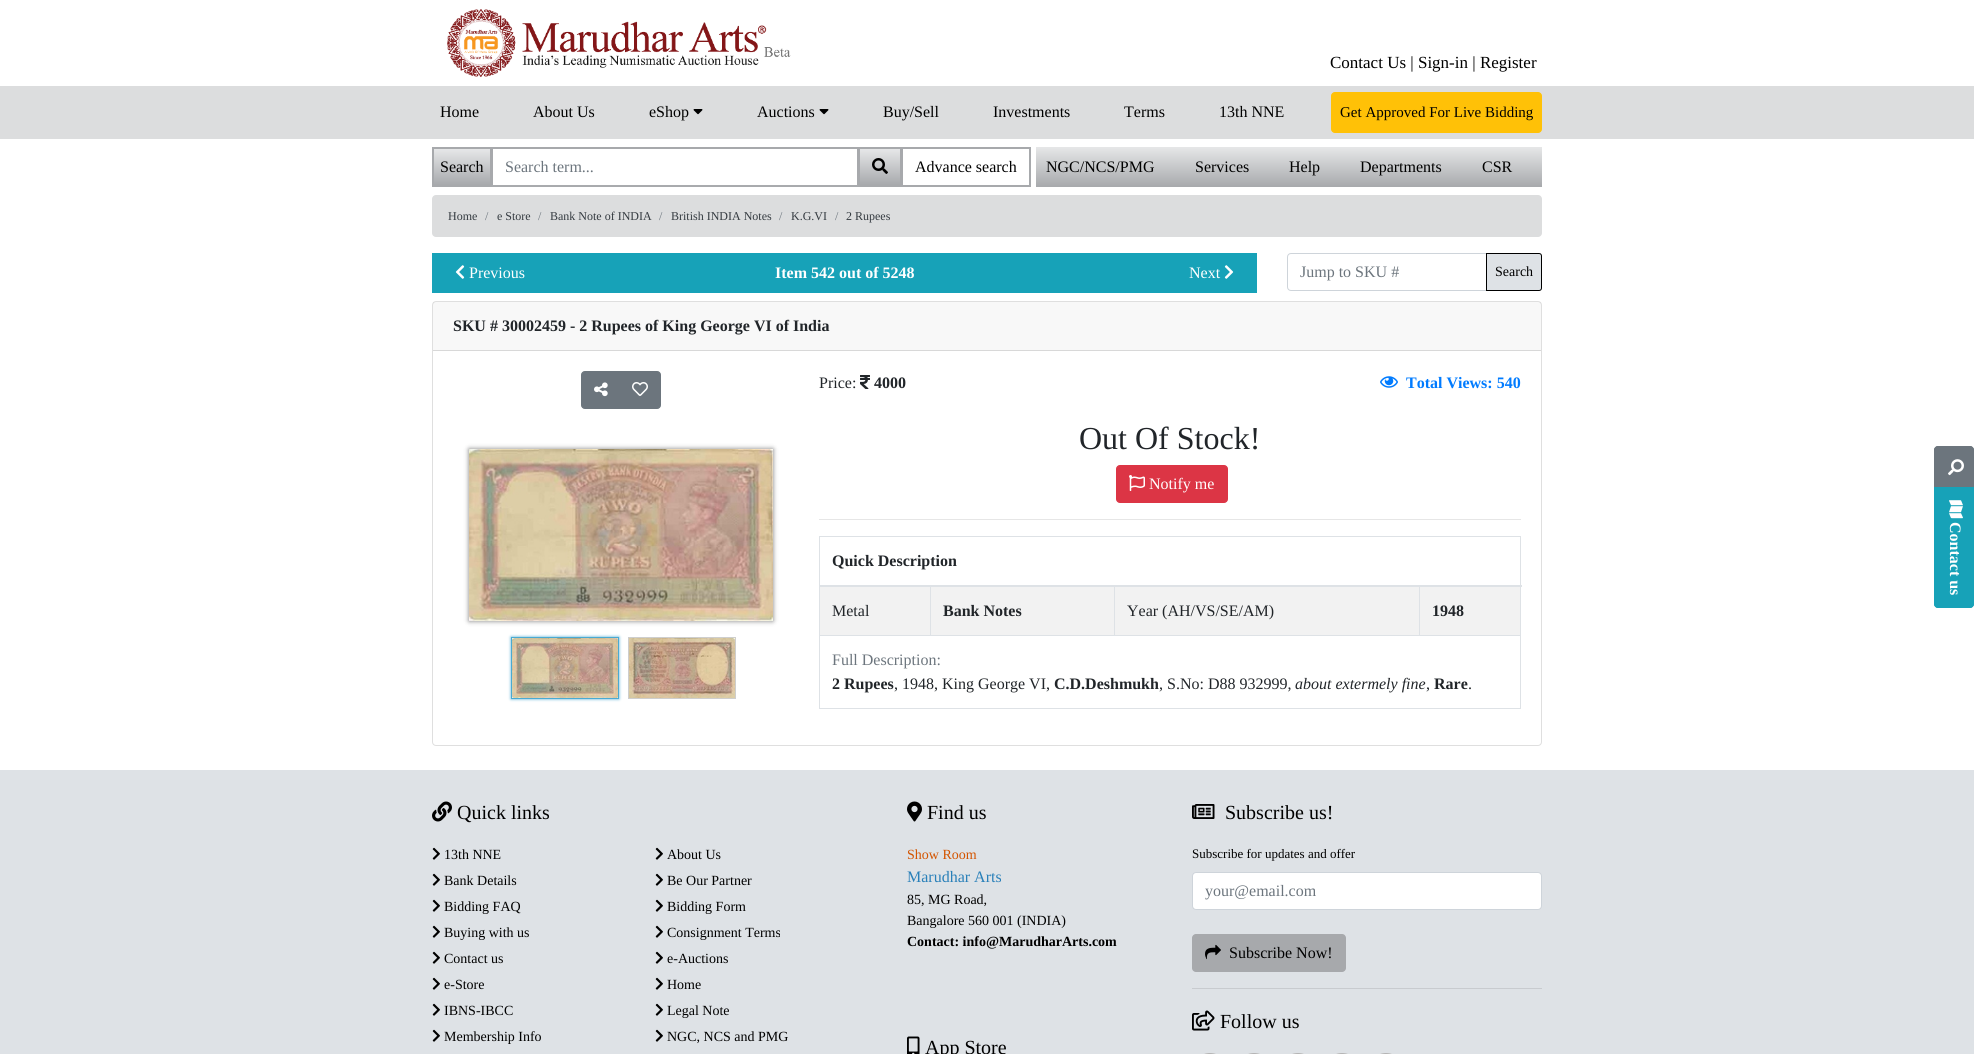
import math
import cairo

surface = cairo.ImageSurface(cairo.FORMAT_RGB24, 1974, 1054)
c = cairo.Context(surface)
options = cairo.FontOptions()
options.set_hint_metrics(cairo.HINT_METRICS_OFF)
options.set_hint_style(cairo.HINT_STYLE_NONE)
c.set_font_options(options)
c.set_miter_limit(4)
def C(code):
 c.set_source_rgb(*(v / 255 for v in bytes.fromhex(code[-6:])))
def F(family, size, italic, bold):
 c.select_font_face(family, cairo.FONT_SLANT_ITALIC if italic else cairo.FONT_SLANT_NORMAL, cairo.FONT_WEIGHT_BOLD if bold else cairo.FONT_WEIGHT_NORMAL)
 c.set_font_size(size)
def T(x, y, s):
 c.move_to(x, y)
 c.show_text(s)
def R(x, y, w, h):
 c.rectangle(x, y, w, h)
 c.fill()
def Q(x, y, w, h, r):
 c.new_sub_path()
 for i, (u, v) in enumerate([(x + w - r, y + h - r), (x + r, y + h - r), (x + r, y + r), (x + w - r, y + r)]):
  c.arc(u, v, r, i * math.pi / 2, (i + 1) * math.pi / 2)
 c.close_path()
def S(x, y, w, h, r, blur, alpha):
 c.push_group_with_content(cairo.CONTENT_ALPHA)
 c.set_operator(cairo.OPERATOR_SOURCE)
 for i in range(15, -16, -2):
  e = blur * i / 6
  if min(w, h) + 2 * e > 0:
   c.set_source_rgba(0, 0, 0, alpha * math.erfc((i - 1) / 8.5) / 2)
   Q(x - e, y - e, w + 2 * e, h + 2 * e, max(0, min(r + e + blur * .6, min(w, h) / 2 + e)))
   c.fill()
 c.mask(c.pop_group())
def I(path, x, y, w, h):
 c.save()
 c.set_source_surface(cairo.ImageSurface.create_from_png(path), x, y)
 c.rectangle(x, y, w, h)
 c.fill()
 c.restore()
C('ffffff')
c.paint()
I('1.png',447,9,344,68)
F('Liberation Serif',17,0,0)
C('000000')
T(1330,68,'Contact Us | Sign-in | Register')
C('dcddde')
R(0,86,1974,53)
F('Liberation Serif',16,0,0)
C('000000')
T(440,117,'Home')
T(533,117,'About Us')
T(649,117,'eShop')
I('2.png',693,109,10,6)
T(757,117,'Auctions')
I('2.png',819,109,10,6)
T(883,117,'Buy/Sell')
T(993,117,'Investments')
T(1124,117,'Terms')
T(1219,117,'13th NNE')
C('ffc107')
Q(1331.5,92.5,210,40,3.5)
c.fill_preserve()
c.set_line_width(1)
c.stroke()
F('Liberation Serif',15,0,0)
C('000000')
T(1340,117,'Get Approved For Live Bidding')
gradient = cairo.LinearGradient(987,147,987,187)
gradient.add_color_stop_rgba(0,0.902,0.906,0.91,1)
gradient.add_color_stop_rgba(1,0.655,0.663,0.675,1)
c.set_source(gradient)
R(492,147,1050,40)
gradient = cairo.LinearGradient(462,149,462,185)
gradient.add_color_stop_rgba(0,0.902,0.906,0.91,1)
gradient.add_color_stop_rgba(1,0.655,0.663,0.675,1)
c.set_source(gradient)
R(434,149,56,36)
c.rectangle(433,148,58,38)
C('a7a9ac')
c.set_line_width(2)
c.stroke()
F('Liberation Serif',16,0,0)
C('000000')
T(440,172,'Search')
C('ffffff')
R(493,149,364,36)
C('a7a9ac')
R(491,147,368,2)
R(857,147,1,38)
R(492,147,1,38)
C('6c757d')
T(505,172,'Search term...')
gradient = cairo.LinearGradient(880,149,880,185)
gradient.add_color_stop_rgba(0,0.902,0.906,0.91,1)
gradient.add_color_stop_rgba(1,0.655,0.663,0.675,1)
c.set_source(gradient)
R(860,149,40,36)
C('ffffff')
c.rectangle(902,148,128,38)
c.fill_preserve()
C('a7a9ac')
c.stroke()
c.rectangle(859,148,42,38)
c.stroke()
I('3.png',872,158,16,16)
C('000000')
T(915,172,'Advance search')
C('ffffff')
R(1031,147,5,40)
C('000000')
T(1046,172,'NGC/NCS/PMG')
T(1195,172,'Services')
T(1289,172,'Help')
T(1360,172,'Departments')
T(1482,172,'CSR')
C('dcddde')
Q(432,195,1110,42,4)
c.fill()
F('Liberation Serif',12,0,0)
C('343a40')
T(448,220,'Home')
C('6c757d')
T(485,220,'/')
C('343a40')
T(497,220,'e Store')
C('6c757d')
T(538,220,'/')
C('343a40')
T(550,220,'Bank Note of INDIA')
C('6c757d')
T(659,220,'/')
C('343a40')
T(671,220,'British INDIA Notes')
C('6c757d')
T(779,220,'/')
C('343a40')
T(791,220,'K.G.VI')
C('6c757d')
T(835,220,'/')
C('343a40')
T(846,220,'2 Rupees')
C('17a2b8')
R(432,253,825,40)
I('4.png',455,265,10,14)
F('Liberation Serif',16,0,0)
C('ffffff')
T(469,278,'Previous')
F('Liberation Serif',16,0,1)
T(775,278,'Item 542 out of 5248')
F('Liberation Serif',16,0,0)
T(1189,278,'Next')
I('5.png',1224,265,10,14)
c.new_path()
c.move_to(1291,253.5)
c.line_to(1486.5,253.5)
c.line_to(1486.5,290.5)
c.line_to(1291,290.5)
c.curve_to(1289,290.5,1287.5,289,1287.5,287)
c.line_to(1287.5,257)
c.curve_to(1287.5,255,1289,253.5,1291,253.5)
c.close_path()
C('ced4da')
c.set_line_width(1)
c.stroke()
C('6c757d')
T(1300,277,'Jump to SKU #')
C('dee2e6')
c.new_path()
c.move_to(1486.5,253.5)
c.line_to(1539,253.5)
c.curve_to(1540.5,253.5,1541.5,254.5,1541.5,256)
c.line_to(1541.5,288)
c.curve_to(1541.5,289.5,1540.5,290.5,1539,290.5)
c.line_to(1486.5,290.5)
c.close_path()
c.fill_preserve()
C('000000')
c.stroke()
F('Liberation Serif',14,0,0)
T(1495,276,'Search')
Q(432.5,301.5,1109,444,3.5)
C('dfdfdf')
c.stroke()
c.set_source_rgba(0,0,0,0.03)
R(433,302,1108,48)
C('d8d8d8')
R(433,350,1108,1)
F('Liberation Serif',16,0,1)
C('212529')
T(453,331,'SKU # 30002459 - 2 Rupees of King George VI of India')
C('6c757d')
c.new_path()
c.move_to(585,371.5)
c.line_to(619.5,371.5)
c.line_to(619.5,408.5)
c.line_to(585,408.5)
c.curve_to(583,408.5,581.5,407,581.5,405)
c.line_to(581.5,375)
c.curve_to(581.5,373,583,371.5,585,371.5)
c.close_path()
c.fill_preserve()
c.stroke()
I('6.png',594,382,14,15)
c.new_path()
c.move_to(619.5,371.5)
c.line_to(657,371.5)
c.curve_to(659,371.5,660.5,373,660.5,375)
c.line_to(660.5,405)
c.curve_to(660.5,407,659,408.5,657,408.5)
c.line_to(619.5,408.5)
c.close_path()
c.fill_preserve()
c.stroke()
I('7.png',632,382,16,14)
C('000000')
S(469,449,304,172,0,2.5,.5)
I('8.png',469,449,304,172)
C('4aa9d2')
S(511,637,108,62,0,1.5,1)
c.rectangle(511.5,637.5,107,61)
C('4aaad2')
c.stroke()
c.rectangle(628.5,637.5,107,61)
C('cecece')
c.stroke()
I('9.png',512,638,106,60)
I('10.png',629,638,106,60)
F('Liberation Serif',16,0,0)
C('212529')
T(819,388,'Price:')
I('11.png',860,375,10,14)
F('Liberation Serif',16,0,1)
T(874,388,'4000')
I('12.png',1380,376,18,12)
C('007bff')
T(1406,388,'Total Views: 540')
F('Liberation Serif',32,0,0)
C('212529')
T(1079,449,'Out Of Stock!')
C('dc3545')
Q(1116.5,465.5,111,37,3.5)
c.fill_preserve()
c.stroke()
I('13.png',1129,475,16,16)
F('Liberation Serif',16,0,0)
C('ffffff')
T(1149,489,'Notify me')
C('e6e6e6')
R(819,519,702,1)
C('dee2e6')
R(819,536,702,1)
R(1520,536,1,173)
R(819,708,702,1)
R(819,536,1,173)
C('f2f2f2')
R(820,587,700,48)
C('dee2e6')
R(819,635,702,1)
R(930,586,1,50)
R(1114,586,1,50)
R(1419,586,1,50)
R(819,585,703,2)
F('Liberation Serif',16,0,1)
C('212529')
T(832,566,'Quick Description')
F('Liberation Serif',16,0,0)
T(832,616,'Metal')
F('Liberation Serif',16,0,1)
T(943,616,'Bank Notes')
F('Liberation Serif',16,0,0)
T(1127,616,'Year (AH/VS/SE/AM)')
F('Liberation Serif',16,0,1)
T(1432,616,'1948')
F('Liberation Serif',16,0,0)
C('6c757d')
T(832,665,'Full Description:')
F('Liberation Serif',16,0,1)
C('212529')
T(832,689,'2 Rupees')
F('Liberation Serif',16,0,0)
T(894,689,', 1948, King George VI,')
F('Liberation Serif',16,0,1)
T(1054,689,'C.D.Deshmukh')
F('Liberation Serif',16,0,0)
T(1159,689,', S.No: D88 932999,')
F('Liberation Serif',16,1,0)
T(1295,689,'about extermely fine')
F('Liberation Serif',16,0,0)
T(1426,689,',')
F('Liberation Serif',16,0,1)
T(1434,689,'Rare')
F('Liberation Serif',16,0,0)
T(1468,689,'.')
C('6c757d')
c.new_path()
c.move_to(1974,450)
c.line_to(1974,488)
c.line_to(1934,488)
c.line_to(1934,450)
c.curve_to(1934,448,1936,446,1938,446)
c.line_to(1970,446)
c.curve_to(1972,446,1974,448,1974,450)
c.close_path()
c.fill()
c.new_path()
c.move_to(1973.5,450)
c.line_to(1973.5,487.5)
c.line_to(1934.5,487.5)
c.line_to(1934.5,450)
c.curve_to(1934.5,448,1936,446.5,1938,446.5)
c.line_to(1970,446.5)
c.curve_to(1972,446.5,1973.5,448,1973.5,450)
c.close_path()
c.stroke()
I('14.png',1948,459,16,17)
C('17a2b8')
c.new_path()
c.move_to(1974,487)
c.line_to(1974,604)
c.curve_to(1974,606,1972,608,1970,608)
c.line_to(1938,608)
c.curve_to(1936,608,1934,606,1934,604)
c.line_to(1934,487)
c.close_path()
c.fill()
c.new_path()
c.move_to(1973.5,487.5)
c.line_to(1973.5,604)
c.curve_to(1973.5,606,1972,607.5,1970,607.5)
c.line_to(1938,607.5)
c.curve_to(1936,607.5,1934.5,606,1934.5,604)
c.line_to(1934.5,487.5)
c.close_path()
c.stroke()
I('15.png',1949,500,14,19)
F('Liberation Serif',16,0,1)
C('ffffff')
c.save()
c.translate(1950,522)
c.rotate(90 * math.pi / 180)
T(0,0,'Contact us')
c.restore()
C('dee2e6')
R(0,770,1974,284)
I('16.png',432,801,20,21)
F('Liberation Serif',20,0,0)
C('000000')
T(457,819,'Quick links')
I('17.png',432,847,8,13)
F('Liberation Serif',14,0,0)
T(444,859,'13th NNE')
I('17.png',655,847,8,13)
T(667,859,'About Us')
I('17.png',432,873,8,13)
T(444,885,'Bank Details')
I('17.png',655,873,8,13)
T(667,885,'Be Our Partner')
I('17.png',432,899,8,13)
T(444,911,'Bidding FAQ')
I('17.png',655,899,8,13)
T(667,911,'Bidding Form')
I('17.png',432,925,8,13)
T(444,937,'Buying with us')
I('17.png',655,925,8,13)
T(667,937,'Consignment Terms')
I('17.png',432,951,8,13)
T(444,963,'Contact us')
I('17.png',655,951,8,13)
T(667,963,'e-Auctions')
I('17.png',432,977,8,13)
T(444,989,'e-Store')
I('17.png',655,977,8,13)
T(667,989,'Home')
I('17.png',432,1003,8,13)
T(444,1015,'IBNS-IBCC')
I('17.png',655,1003,8,13)
T(667,1015,'Legal Note')
I('17.png',432,1029,8,13)
T(444,1041,'Membership Info')
I('17.png',655,1029,8,13)
T(667,1041,'NGC, NCS and PMG')
I('18.png',907,801,15,21)
F('Liberation Serif',20,0,0)
T(927,819,'Find us')
F('Liberation Serif',14,0,0)
C('d35400')
T(907,859,'Show Room')
F('Liberation Serif',16,0,0)
C('2980b9')
T(907,882,'Marudhar Arts')
F('Liberation Serif',14,0,0)
C('000000')
T(907,904,'85, MG Road,')
T(907,925,'Bangalore 560 001 (INDIA)')
F('Liberation Serif',14,0,1)
T(907,946,'Contact: info@MarudharArts.com')
I('19.png',907,1036,13,18)
F('Liberation Serif',20,0,0)
T(925,1054,'App Store')
I('20.png',1192,804,23,15)
T(1225,819,'Subscribe us!')
F('Liberation Serif',13,0,0)
T(1192,858,'Subscribe for updates and offer')
C('ffffff')
Q(1192.5,872.5,349,37,3.5)
c.fill_preserve()
C('ced4da')
c.stroke()
F('Liberation Serif',16,0,0)
C('6c757d')
T(1205,896,'your@email.com')
C('a7a9ac')
Q(1192,934,154,38,4)
c.fill()
I('21.png',1205,944,16,16)
C('000000')
T(1229,958,'Subscribe Now!')
C('c8cbcf')
R(1192,988,350,1)
I('22.png',1192,1010,23,21)
F('Liberation Serif',20,0,0)
C('000000')
T(1220,1028,'Follow us')
Q(1193,1054,34,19,17)
C('b5b5b5')
c.set_line_width(2)
c.stroke()
Q(1237,1054,34,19,17)
c.stroke()
Q(1281,1054,34,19,17)
c.stroke()
Q(1325,1054,34,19,17)
c.stroke()
Q(1369,1054,34,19,17)
c.stroke()
surface.write_to_png('o.png')
